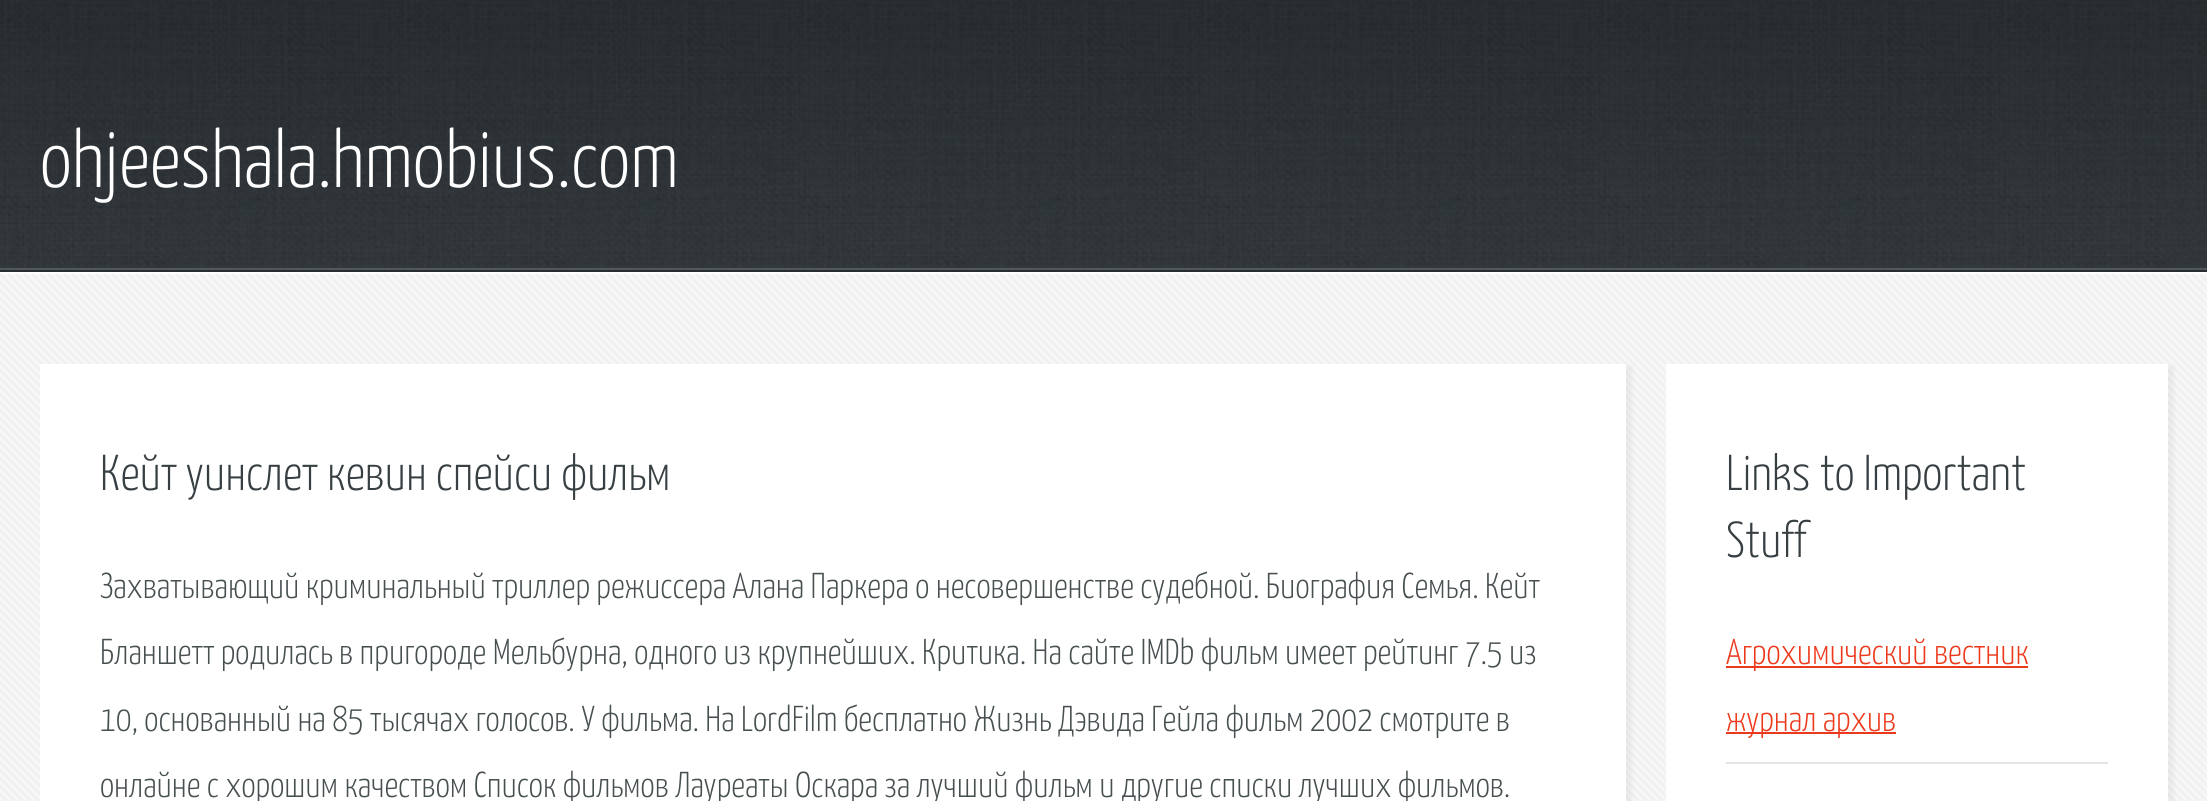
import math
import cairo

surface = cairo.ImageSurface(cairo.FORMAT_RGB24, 2207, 801)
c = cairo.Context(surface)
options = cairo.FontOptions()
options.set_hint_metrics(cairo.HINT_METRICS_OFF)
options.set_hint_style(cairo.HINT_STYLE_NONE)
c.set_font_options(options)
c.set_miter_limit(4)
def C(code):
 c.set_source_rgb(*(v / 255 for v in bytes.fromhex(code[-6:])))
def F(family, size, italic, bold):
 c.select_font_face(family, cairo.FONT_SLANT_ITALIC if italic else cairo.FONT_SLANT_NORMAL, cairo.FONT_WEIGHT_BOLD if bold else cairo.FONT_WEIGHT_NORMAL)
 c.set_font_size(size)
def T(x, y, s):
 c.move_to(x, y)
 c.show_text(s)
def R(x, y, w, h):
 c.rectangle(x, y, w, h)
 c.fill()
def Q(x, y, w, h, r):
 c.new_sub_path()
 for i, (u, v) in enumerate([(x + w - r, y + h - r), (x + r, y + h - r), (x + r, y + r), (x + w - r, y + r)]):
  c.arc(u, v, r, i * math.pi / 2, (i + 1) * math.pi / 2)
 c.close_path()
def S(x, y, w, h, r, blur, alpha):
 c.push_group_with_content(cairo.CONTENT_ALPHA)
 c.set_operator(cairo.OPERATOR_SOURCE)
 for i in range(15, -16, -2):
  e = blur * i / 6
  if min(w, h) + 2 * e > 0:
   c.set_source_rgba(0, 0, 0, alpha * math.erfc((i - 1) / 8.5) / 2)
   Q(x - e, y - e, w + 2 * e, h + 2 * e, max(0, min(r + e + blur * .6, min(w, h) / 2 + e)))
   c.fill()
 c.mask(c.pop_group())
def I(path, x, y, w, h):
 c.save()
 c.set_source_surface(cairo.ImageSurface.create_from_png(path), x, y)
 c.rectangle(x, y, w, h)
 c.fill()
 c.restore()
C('f7f7f7')
c.paint()
I('1.png',0,0,2207,268)
C('51575a')
R(0,268,2207,2)
C('272d30')
R(0,270,2207,2)
F('Yanone Kaffeesatz Light',81,0,0)
C('ffffff')
T(40,187,'ohjeeshala.hmobius.com')
I('2.png',0,274,2207,527)
R(0,272,2207,2)
C('808080')
S(42,366,1590,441,0,2,.1)
C('ffffff')
R(40,364,1586,437)
F('Yanone Kaffeesatz Light',50.4,0,0)
C('373f42')
T(100,490,'Кейт уинслет кевин спейси фильм')
F('Yanone Kaffeesatz Light',36,0,0)
C('474f51')
T(100,598,'Захватывающий криминальный триллер режиссера Алана Паркера о несовершенстве судебной. Биография Семья. Кейт')
T(100,664,'Бланшетт родилась в пригороде Мельбурна, одного из крупнейших. Критика. На сайте IMDb фильм имеет рейтинг 7.5 из')
T(100,731,'10, основанный на 85 тысячах голосов. У фильма. На LordFilm бесплатно Жизнь Дэвида Гейла фильм 2002 смотрите в')
T(100,797,'онлайне с хорошим качеством Список фильмов Лауреаты Оскара за лучший фильм и другие списки лучших фильмов.')
C('808080')
S(1668,366,506,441,0,2,.1)
C('ffffff')
R(1666,364,502,437)
F('Yanone Kaffeesatz Light',50.4,0,0)
C('373f42')
T(1726,490,'Links to Important')
T(1726,557,'Stuff')
C('e2e6e8')
R(1726,762,382,2)
C('ed391b')
R(1726,666,302,2)
F('Yanone Kaffeesatz Light',36,0,0)
T(1726,664,'Агрохимический вестник')
R(1726,732,170,2)
T(1726,731,'журнал архив')
surface.write_to_png('o.png')
